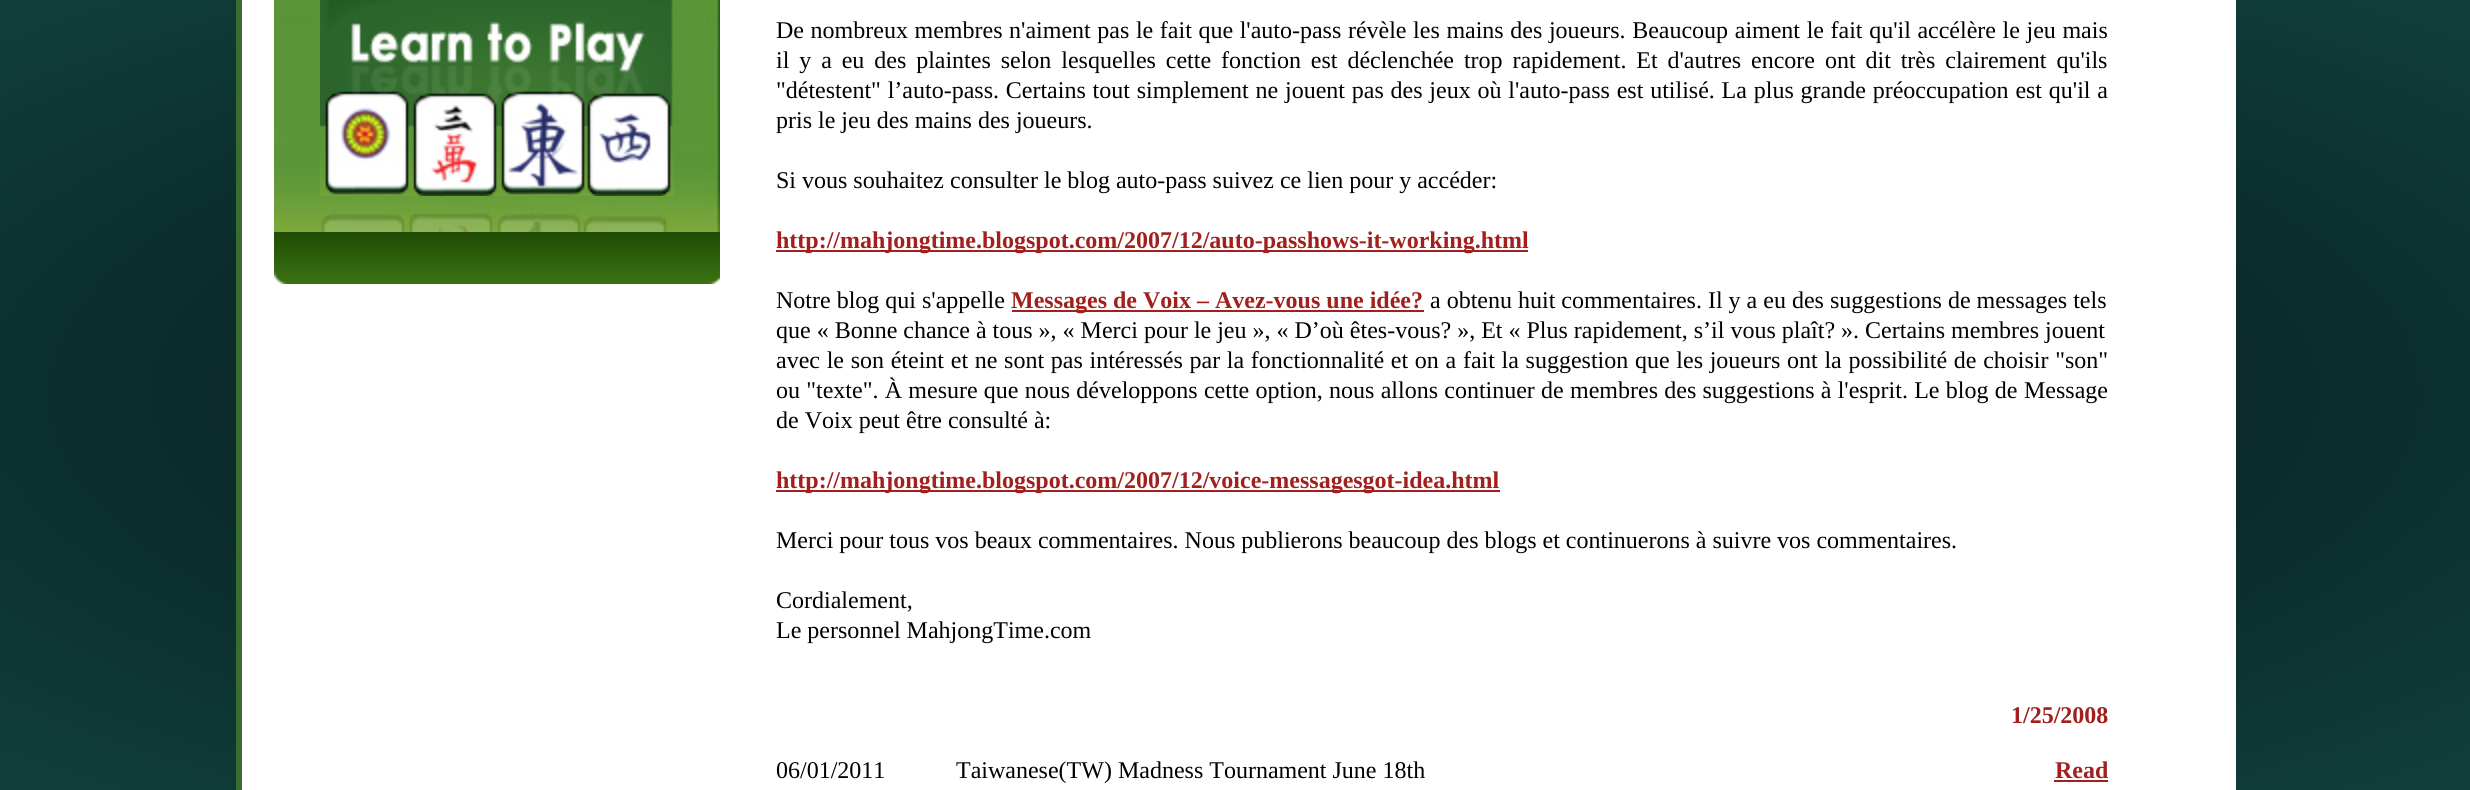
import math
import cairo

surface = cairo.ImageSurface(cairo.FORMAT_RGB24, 2470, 790)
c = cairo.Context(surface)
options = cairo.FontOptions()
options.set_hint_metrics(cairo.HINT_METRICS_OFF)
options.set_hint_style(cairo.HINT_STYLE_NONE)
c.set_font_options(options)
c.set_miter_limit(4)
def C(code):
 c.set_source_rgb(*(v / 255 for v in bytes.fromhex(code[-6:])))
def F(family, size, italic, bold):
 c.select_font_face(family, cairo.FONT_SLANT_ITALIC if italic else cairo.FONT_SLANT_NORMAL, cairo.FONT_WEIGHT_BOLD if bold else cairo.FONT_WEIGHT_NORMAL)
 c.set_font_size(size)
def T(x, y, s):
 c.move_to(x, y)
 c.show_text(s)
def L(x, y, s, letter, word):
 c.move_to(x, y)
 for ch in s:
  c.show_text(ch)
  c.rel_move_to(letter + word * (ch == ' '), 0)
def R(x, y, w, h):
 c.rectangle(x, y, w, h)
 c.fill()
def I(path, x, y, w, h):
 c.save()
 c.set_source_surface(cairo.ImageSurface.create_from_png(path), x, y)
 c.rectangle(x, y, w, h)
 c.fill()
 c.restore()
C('ffffff')
c.paint()
gradient = cairo.RadialGradient(0,0,0,0,0,1)
gradient.set_matrix(cairo.Matrix(1 / 1747, 0, 0, 1 / 559, -1 * 1235 / 1747, -1 * 395 / 559))
gradient.add_color_stop_rgba(0,0.02,0.024,0.027,1)
gradient.add_color_stop_rgba(.6,0.043,0.169,0.165,1)
gradient.add_color_stop_rgba(1,0.063,0.247,0.231,1)
c.set_source(gradient)
R(0,0,2470,790)
C('ffffff')
R(242,0,1994,790)
C('396c2f')
R(236,0,6,790)
I('1.png',274,0,446,232)
I('2.png',320,0,354,196)
I('3.png',274,232,446,52)
F('Liberation Serif',24,0,0)
C('000000')
L(776,38,'De nombreux membres n\'aiment pas le fait que l\'auto-pass révèle les mains des joueurs. Beaucoup aiment le fait qu\'il accélère le jeu mais',0,.6)
L(776,68,'il y a eu des plaintes selon lesquelles cette fonction est déclenchée trop rapidement. Et d\'autres encore ont dit très clairement qu\'ils',0,3.9)
L(776,98,'"détestent" l’auto-pass. Certains tout simplement ne jouent pas des jeux où l\'auto-pass est utilisé. La plus grande préoccupation est qu\'il a',0,.8)
T(776,128,'pris le jeu des mains des joueurs.')
T(776,188,'Si vous souhaitez consulter le blog auto-pass suivez ce lien pour y accéder:')
C('a1201d')
R(776,250,752,2)
F('Liberation Serif',24,0,1)
T(776,248,'http://mahjongtime.blogspot.com/2007/12/auto-passhows-it-working.html')
F('Liberation Serif',24,0,0)
C('000000')
T(776,308,'Notre blog qui s\'appelle')
C('a1201d')
R(1012,310,412,2)
F('Liberation Serif',24,0,1)
T(1011,308,'Messages de Voix – Avez-vous une idée?')
F('Liberation Serif',24,0,0)
C('000000')
T(1430,308,'a obtenu huit commentaires. Il y a eu des suggestions de messages tels')
T(776,338,'que « Bonne chance à tous », « Merci pour le jeu », « D’où êtes-vous? », Et « Plus rapidement, s’il vous plaît? ». Certains membres jouent')
L(776,368,'avec le son éteint et ne sont pas intéressés par la fonctionnalité et on a fait la suggestion que les joueurs ont la possibilité de choisir "son"',0,.7)
L(776,398,'ou "texte". À mesure que nous développons cette option, nous allons continuer de membres des suggestions à l\'esprit. Le blog de',0,.25)
T(2024,398,'Message')
T(776,428,'de Voix peut être consulté à:')
C('a1201d')
R(776,490,724,2)
F('Liberation Serif',24,0,1)
T(776,488,'http://mahjongtime.blogspot.com/2007/12/voice-messagesgot-idea.html')
F('Liberation Serif',24,0,0)
C('000000')
T(776,548,'Merci pour tous vos beaux commentaires. Nous publierons beaucoup des blogs et continuerons à suivre vos commentaires.')
T(776,608,'Cordialement,')
T(776,638,'Le personnel MahjongTime.com')
F('Liberation Serif',24,0,1)
C('a1201d')
T(2011,723,'1/25/2008')
F('Liberation Serif',24,0,0)
C('000000')
T(776,778,'06/01/2011')
T(956,778,'Taiwanese(TW) Madness Tournament June 18th')
F('Liberation Serif',24,0,1)
C('a1201d')
T(2055,778,'Read')
R(2054,780,54,2)
surface.write_to_png('o.png')
